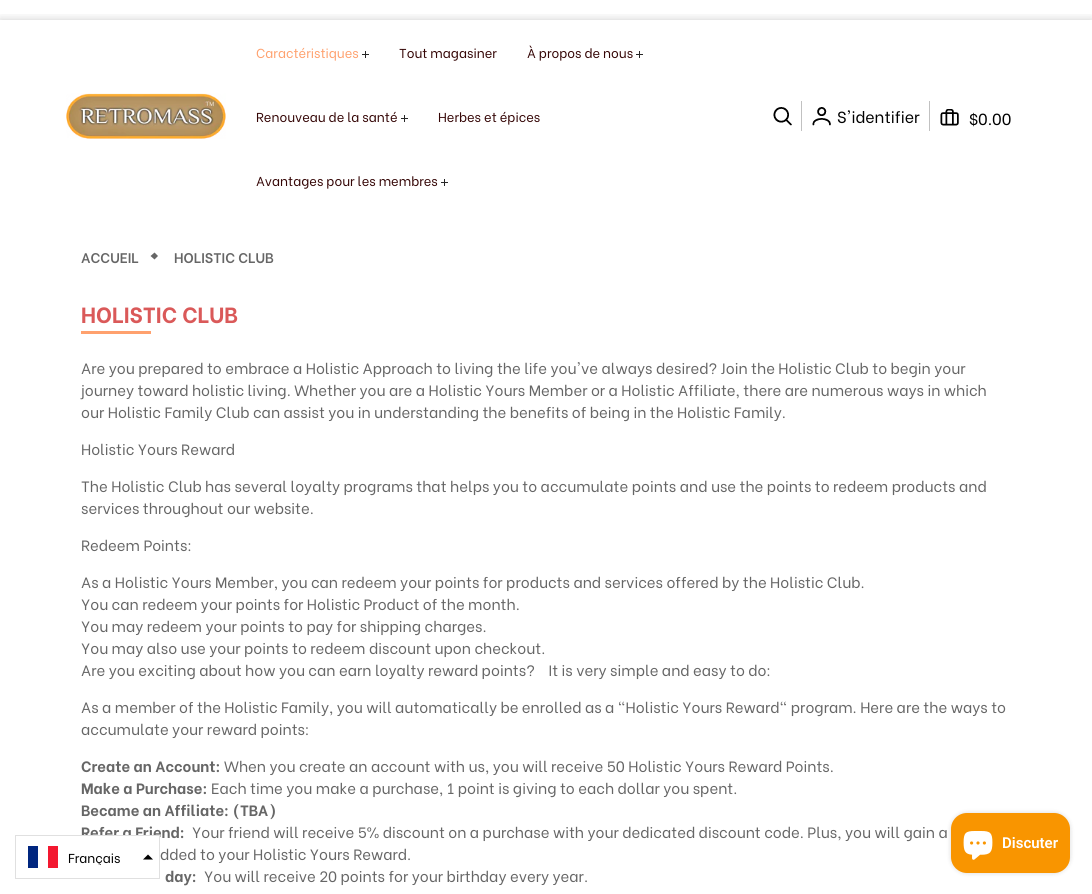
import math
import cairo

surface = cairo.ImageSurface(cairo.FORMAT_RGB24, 1092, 894)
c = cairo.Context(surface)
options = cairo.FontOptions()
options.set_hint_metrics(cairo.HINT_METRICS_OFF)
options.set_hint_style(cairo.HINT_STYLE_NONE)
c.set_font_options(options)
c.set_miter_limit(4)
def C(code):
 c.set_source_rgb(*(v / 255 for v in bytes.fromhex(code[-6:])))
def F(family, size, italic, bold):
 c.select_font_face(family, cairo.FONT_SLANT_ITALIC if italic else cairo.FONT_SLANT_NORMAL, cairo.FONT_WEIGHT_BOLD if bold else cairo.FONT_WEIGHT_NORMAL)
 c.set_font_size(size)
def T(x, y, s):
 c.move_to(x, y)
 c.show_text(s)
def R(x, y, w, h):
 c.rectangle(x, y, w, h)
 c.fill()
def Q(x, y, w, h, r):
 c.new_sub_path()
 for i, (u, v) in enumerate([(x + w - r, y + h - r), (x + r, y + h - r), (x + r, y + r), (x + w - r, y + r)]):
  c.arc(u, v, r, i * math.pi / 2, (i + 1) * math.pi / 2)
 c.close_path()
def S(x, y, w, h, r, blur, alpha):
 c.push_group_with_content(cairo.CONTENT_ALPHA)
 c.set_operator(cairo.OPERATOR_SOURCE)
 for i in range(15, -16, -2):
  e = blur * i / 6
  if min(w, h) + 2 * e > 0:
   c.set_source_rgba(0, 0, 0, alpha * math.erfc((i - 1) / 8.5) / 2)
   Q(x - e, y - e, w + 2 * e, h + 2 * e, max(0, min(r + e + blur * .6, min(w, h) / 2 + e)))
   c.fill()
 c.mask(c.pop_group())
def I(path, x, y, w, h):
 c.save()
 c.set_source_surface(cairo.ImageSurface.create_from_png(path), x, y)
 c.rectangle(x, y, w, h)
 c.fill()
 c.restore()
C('ffffff')
c.paint()
c.save()
c.rectangle(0,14,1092,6)
c.clip()
C('000000')
S(0,20,1092,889,0,5,.2)
c.restore()
I('1.png',66,93,160,46)
F('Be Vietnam',13,0,0)
C('ffa16e')
T(256,58,'Caractéristiques')
I('2.png',362,51,7,7)
C('350606')
T(399,58,'Tout magasiner')
T(527,58,'À propos de nous')
I('2.png',636,51,7,7)
T(256,122,'Renouveau de la santé')
I('2.png',401,115,7,7)
T(438,122,'Herbes et épices')
T(256,186,'Avantages pour les membres')
I('2.png',441,179,7,7)
I('3.png',773,107,19,19)
C('c1c1c1')
R(801,101,1,30)
I('4.png',812,107,19,19)
F('Be Vietnam',16,0,0)
C('000000')
T(837,123,'S\'identifier')
C('c1c1c1')
R(929,101,1,30)
I('5.png',940,109,19,17)
C('000000')
T(969,125,'$0.00')
F('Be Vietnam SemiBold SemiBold',14,0,0)
C('666666')
T(81,263,'ACCUEIL')
c.new_path()
c.move_to(154.5,252.5)
c.line_to(158,256)
c.line_to(154.5,259.5)
c.line_to(150.5,256)
c.close_path()
c.fill()
T(174,263,'HOLISTIC CLUB')
F('Be Vietnam',22,0,1)
C('da5959')
T(81,323,'HOLISTIC CLUB')
C('ffa16e')
R(81,331,70,3)
F('Be Vietnam',15,0,0)
C('666666')
T(81,374,'Are you prepared to embrace a Holistic Approach to living the life you\'ve always desired? Join the Holistic Club to begin your')
T(81,396,'journey toward holistic living. Whether you are a Holistic Yours Member or a Holistic Affiliate, there are numerous ways in which')
T(81,418,'our Holistic Family Club can assist you in understanding the benefits of being in the Holistic Family.')
T(81,455,'Holistic Yours Reward')
T(81,492,'The Holistic Club has several loyalty programs that helps you to accumulate points and use the points to redeem products and')
T(81,514,'services throughout our website.')
T(81,551,'Redeem Points:')
T(81,588,'As a Holistic Yours Member, you can redeem your points for products and services offered by the Holistic Club.')
T(81,610,'You can redeem your points for Holistic Product of the month.')
T(81,632,'You may redeem your points to pay for shipping charges.')
T(81,654,'You may also use your points to redeem discount upon checkout.')
T(81,676,'Are you exciting about how you can earn loyalty reward points?    It is very simple and easy to do:')
T(81,713,'As a member of the Holistic Family, you will automatically be enrolled as a "Holistic Yours Reward" program. Here are the ways to')
T(81,735,'accumulate your reward points:')
F('Be Vietnam',15,0,1)
T(81,772,'Create an Account:')
F('Be Vietnam',15,0,0)
T(224,772,'When you create an account with us, you will receive 50 Holistic Yours Reward Points.')
F('Be Vietnam',15,0,1)
T(81,794,'Make a Purchase:')
F('Be Vietnam',15,0,0)
T(211,794,'Each time you make a purchase, 1 point is giving to each dollar you spent.')
F('Be Vietnam',15,0,1)
T(81,816,'Became an Affiliate: (TBA)')
T(81,838,'Refer a Friend:')
F('Be Vietnam',15,0,0)
T(192,838,'Your friend will receive 5% discount on a purchase with your dedicated discount code. Plus, you will gain a')
T(160,860,'dded to your Holistic Yours Reward.')
F('Be Vietnam',15,0,1)
T(165,882,'day:')
F('Be Vietnam',15,0,0)
T(204,882,'You will receive 20 points for your birthday every year.')
C('000000')
S(951,813,119,60,16,2.5,.15)
C('f99500')
Q(951,813,119,60,16)
c.fill()
I('6.png',963,831,30,29)
F('Roboto SemiBold',15,0,0)
C('ffffff')
T(1002,848,'Discuter')
c.rectangle(15.5,835.5,144,43)
C('e0e0e0')
c.set_line_width(1)
c.stroke()
C('ffffff')
R(81,836,78,3)
C('00267f')
R(28,846,10,22)
C('f31830')
R(48,846,10,22)
c.save()
c.rectangle(68,849,66,16)
c.clip()
F('Be Vietnam',13,0,0)
C('000000')
T(68,863,'Français')
c.restore()
C('000000')
c.set_fill_rule(cairo.FILL_RULE_EVEN_ODD)
c.new_path()
c.move_to(143,859.5)
c.line_to(148,854.5)
c.line_to(153,859.5)
c.close_path()
c.fill()
surface.write_to_png('o.png')
